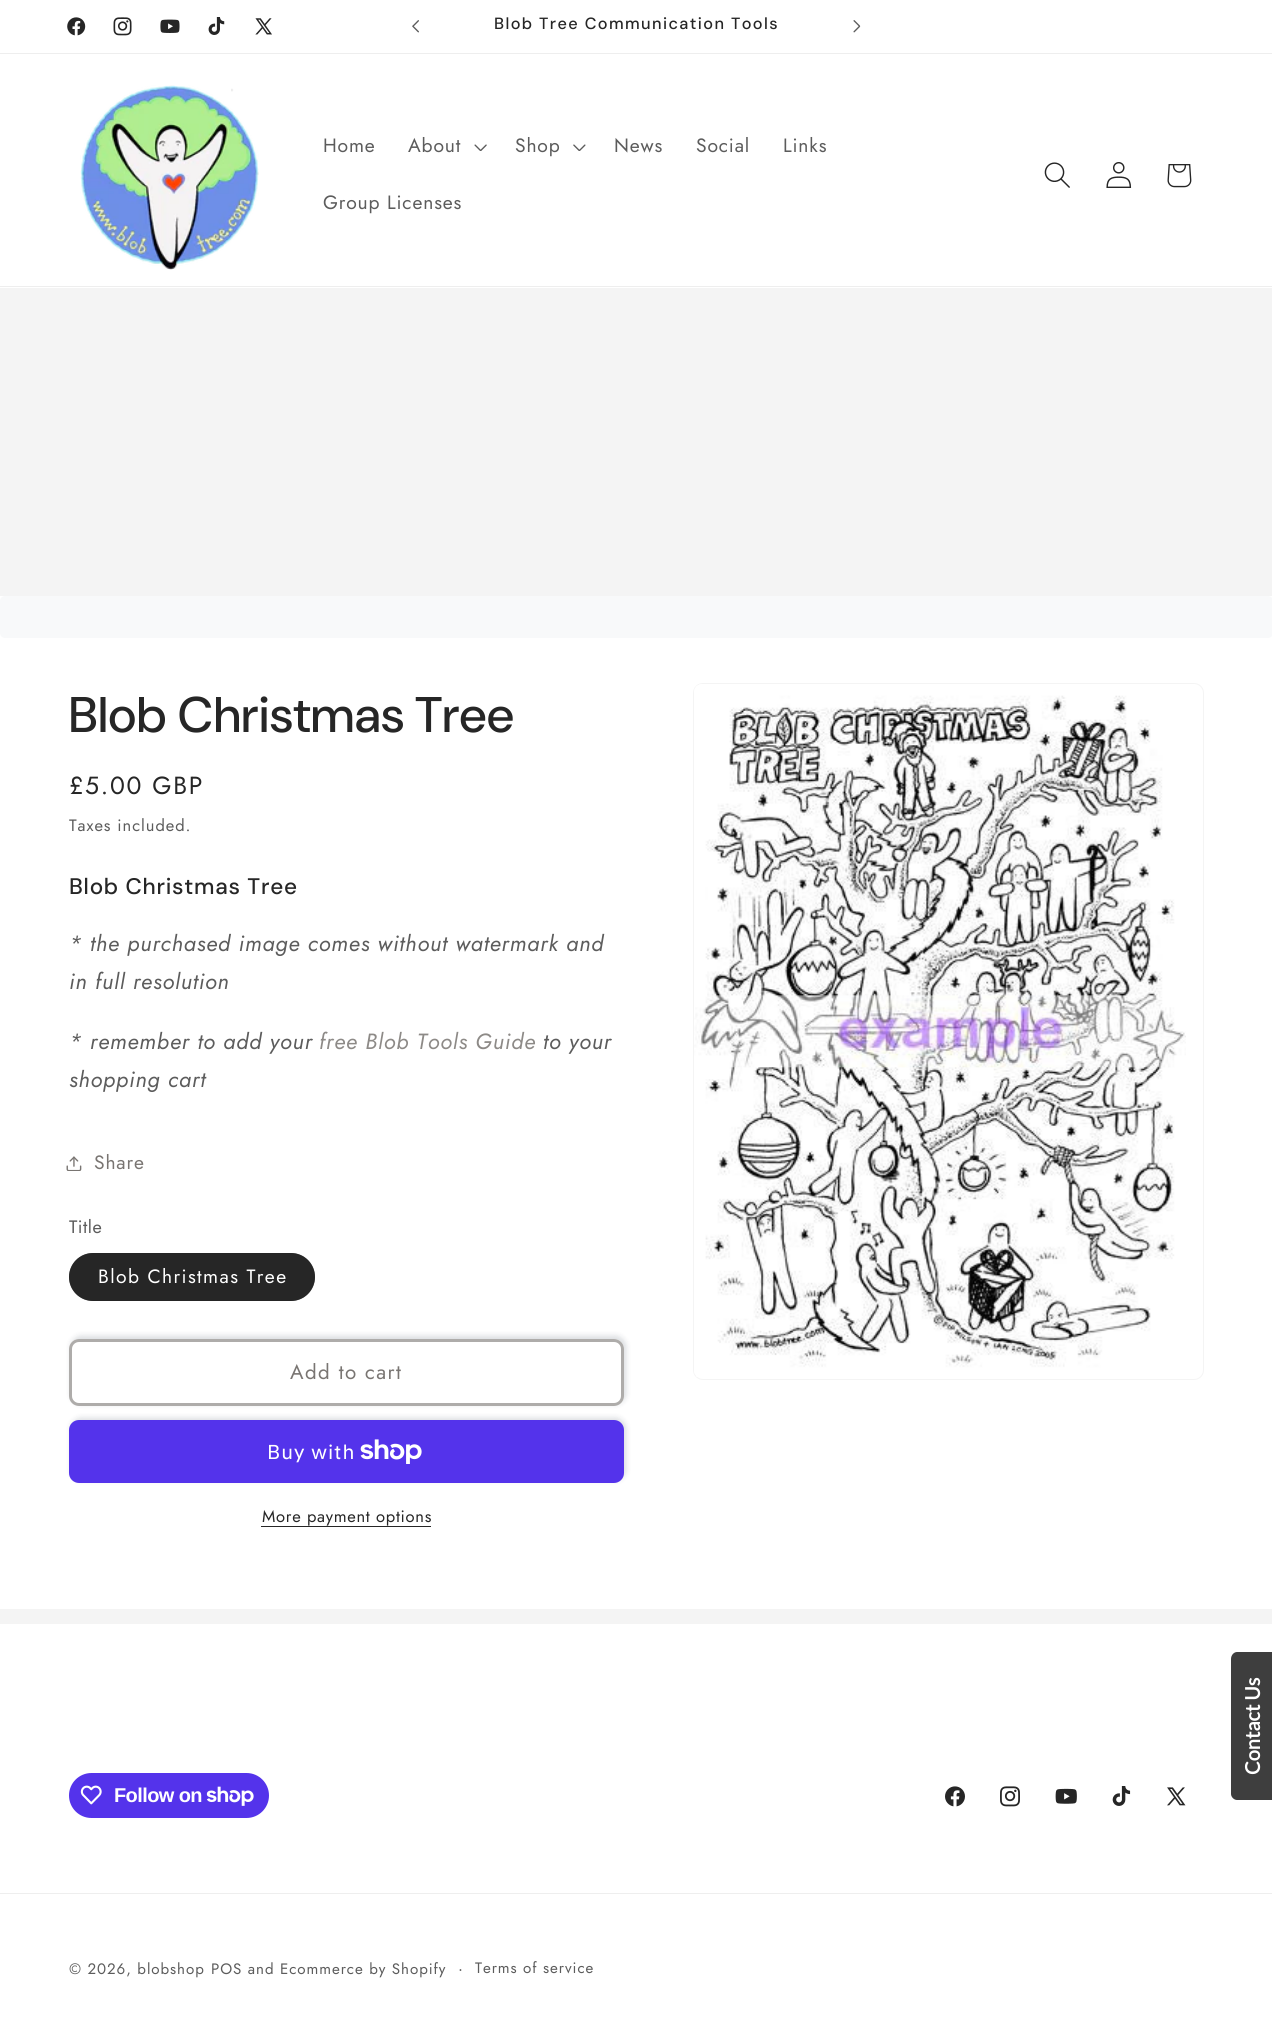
import math
import cairo

surface = cairo.ImageSurface(cairo.FORMAT_RGB24, 1272, 2027)
c = cairo.Context(surface)
options = cairo.FontOptions()
options.set_hint_metrics(cairo.HINT_METRICS_OFF)
options.set_hint_style(cairo.HINT_STYLE_NONE)
c.set_font_options(options)
c.set_miter_limit(4)
def C(code):
 c.set_source_rgb(*(v / 255 for v in bytes.fromhex(code[-6:])))
def F(family, size, italic, bold):
 c.select_font_face(family, cairo.FONT_SLANT_ITALIC if italic else cairo.FONT_SLANT_NORMAL, cairo.FONT_WEIGHT_BOLD if bold else cairo.FONT_WEIGHT_NORMAL)
 c.set_font_size(size)
def T(x, y, s):
 c.move_to(x, y)
 c.show_text(s)
def L(x, y, s, letter, word):
 c.move_to(x, y)
 for ch in s:
  c.show_text(ch)
  c.rel_move_to(letter + word * (ch == ' '), 0)
def R(x, y, w, h):
 c.rectangle(x, y, w, h)
 c.fill()
def Q(x, y, w, h, r):
 c.new_sub_path()
 for i, (u, v) in enumerate([(x + w - r, y + h - r), (x + r, y + h - r), (x + r, y + r), (x + w - r, y + r)]):
  c.arc(u, v, r, i * math.pi / 2, (i + 1) * math.pi / 2)
 c.close_path()
def S(x, y, w, h, r, blur, alpha):
 c.push_group_with_content(cairo.CONTENT_ALPHA)
 c.set_operator(cairo.OPERATOR_SOURCE)
 for i in range(15, -16, -2):
  e = blur * i / 6
  if min(w, h) + 2 * e > 0:
   c.set_source_rgba(0, 0, 0, alpha * math.erfc((i - 1) / 8.5) / 2)
   Q(x - e, y - e, w + 2 * e, h + 2 * e, max(0, min(r + e + blur * .6, min(w, h) / 2 + e)))
   c.fill()
 c.mask(c.pop_group())
def I(path, x, y, w, h):
 c.save()
 c.set_source_surface(cairo.ImageSurface.create_from_png(path), x, y)
 c.rectangle(x, y, w, h)
 c.fill()
 c.restore()
C('f4f4f4')
c.paint()
C('ffffff')
R(0,0,1272,53)
C('eeeeee')
R(0,53,1272,1)
I('1.png',67,17,19,19)
I('2.png',113,17,19,19)
I('3.png',160,19,20,14)
I('4.png',208,17,17,18)
I('5.png',255,18,17,17)
I('6.png',412,20,7,13)
F('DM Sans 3 Medium',16.25,0,0)
C('262626')
L(494,29,'Blob Tree Communication Tools',1.4,0)
I('7.png',853,20,8,13)
C('ffffff')
R(0,54,1272,234)
C('eeeeee')
R(0,286,1272,1)
I('8.png',80,85,179,185)
F('Jost',19.25,0,0)
C('5c5c5c')
L(323,152,'Home',.85,0)
L(408,152,'About',.85,0)
I('9.png',474,144,13,7)
L(515,152,'Shop',.85,0)
I('10.png',573,144,13,7)
L(614,152,'News',.85,0)
L(696,152,'Social',.85,0)
L(783,152,'Links',.85,0)
L(323,209,'Group Licenses',.85,0)
I('11.png',1044,162,26,26)
I('12.png',1106,162,26,26)
I('13.png',1167,164,25,24)
C('ffffff')
R(0,596,1272,1013)
C('f8f9fa')
Q(0,596,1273,42,5)
c.fill()
F('DM Sans Medium',50,0,0)
C('262626')
L(69,732,'Blob Christmas Tree',.75,0)
F('Jost',24.75,0,0)
L(69,794,'£5.00 GBP',1.75,0)
F('Jost',16.5,0,0)
C('5c5c5c')
L(69,831,'Taxes included.',.95,0)
F('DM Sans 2 Medium',22.5,0,0)
C('262626')
L(69,894,'Blob Christmas Tree',.75,0)
F('Jost',22,1,0)
C('5c5c5c')
L(69,951,'* the purchased image comes without watermark and',.85,0)
L(69,989,'in full resolution',.85,0)
L(69,1049,'* remember to add your',.85,0)
C('8d8a87')
L(319,1049,'free Blob Tools Guide',.85,0)
C('5c5c5c')
L(543,1049,'to your',.85,0)
L(69,1087,'shopping cart',.85,0)
I('14.png',66,1156,16,15)
F('Jost',19.25,0,0)
C('797572')
L(94,1169,'Share',.85,0)
F('Jost',18,0,0)
C('5c5c5c')
L(69,1233,'Title',.5,0)
C('262626')
Q(69,1253,246,48,24)
c.fill()
Q(69.5,1253.5,245,47,23.5)
c.set_source_rgba(0.149,0.149,0.149,0.55)
c.set_line_width(1)
c.stroke()
F('Jost',19.25,0,0)
C('ffffff')
L(98,1283,'Blob Christmas Tree',1.4,0)
C('001128')
S(71,1336,555,68,10,3,.15)
C('ffffff')
Q(69,1339,555,67,10)
c.fill()
Q(70.5,1340.5,552,64,8.5)
c.set_line_width(3)
c.stroke()
Q(70.5,1340.5,552,64,8.5)
c.set_source_rgba(0.475,0.459,0.447,0.6)
c.stroke()
F('Jost',20.5,0,0)
C('797572')
L(290,1379,'Add to cart',1.4,0)
C('001128')
S(71,1418,555,62,10,3,.15)
C('5433eb')
Q(69,1420,555,63,10)
c.fill()
F('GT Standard',20,0,0)
C('ffffff')
L(267,1459,'Buy with',.85,0)
I('15.png',360,1439,62,25)
F('Jost',16.5,0,0)
C('262626')
L(262,1522,'More payment options',.7,0)
R(261,1526,170,1)
Q(693.5,683.5,510,696,9.5)
C('f4f4f4')
c.set_line_width(1)
c.stroke()
I('16.png',694,684,492,693)
C('ffffff')
R(0,1624,1272,403)
C('3e3e3e')
c.new_path()
c.move_to(1231,1794)
c.line_to(1231,1659)
c.curve_to(1231,1655,1234,1652,1237,1652)
c.line_to(1272,1652)
c.line_to(1272,1800)
c.line_to(1237,1800)
c.curve_to(1234,1800,1231,1797,1231,1794)
c.close_path()
c.fill()
F('Lato',20,0,1)
C('ffffff')
c.save()
c.translate(1260,1775)
c.rotate(-90 * math.pi / 180)
T(0,0,'Contact Us')
c.restore()
C('5433eb')
Q(69,1773,200,45,22.5)
c.fill()
I('17.png',80,1785,22,20)
F('Liberation Sans',20,0,1)
C('ffffff')
L(114,1802,'Follow on',-.6,0)
I('18.png',206,1786,48,20)
I('19.png',945,1786,20,21)
I('20.png',1000,1786,20,21)
I('21.png',1055,1788,22,16)
I('22.png',1112,1786,19,20)
I('23.png',1167,1787,19,19)
C('eeeeee')
R(0,1893,1272,1)
F('Jost',15.1,0,0)
C('5c5c5c')
L(69,1974,'© 2026, blobshop',.95,0)
L(211,1974,'POS and Ecommerce by Shopify',.95,0)
F('Jost',16.5,0,0)
L(458,1974,'·',.95,0)
F('Jost',15.1,0,0)
L(475,1973,'Terms of service',.95,0)
surface.write_to_png('o.png')
